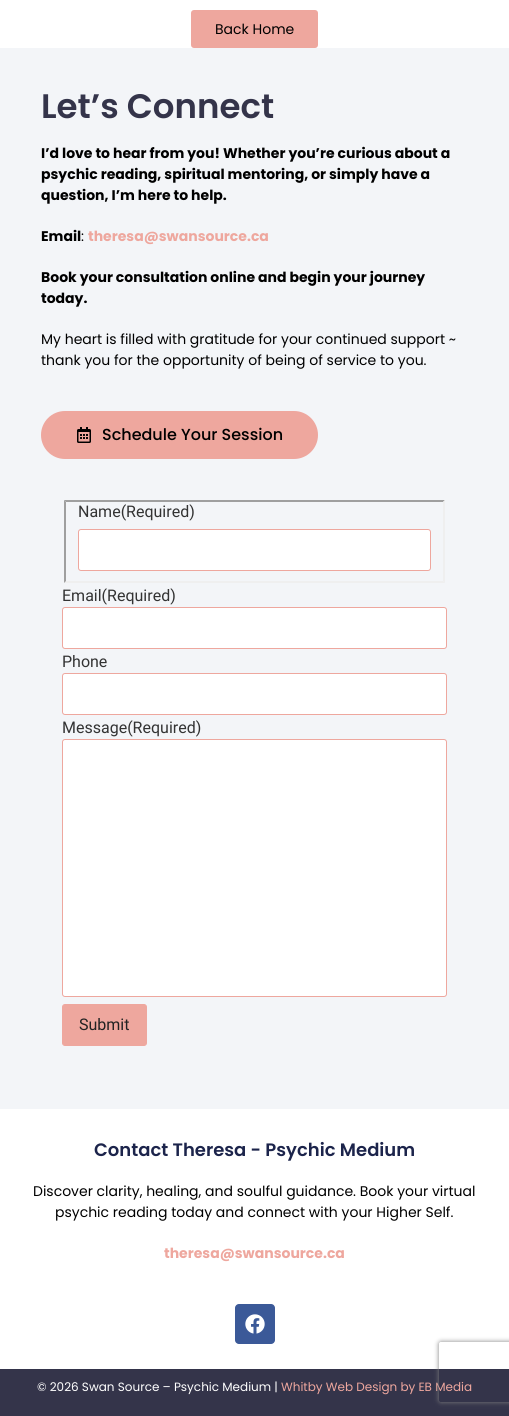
import math
import cairo

surface = cairo.ImageSurface(cairo.FORMAT_RGB24, 509, 1416)
c = cairo.Context(surface)
options = cairo.FontOptions()
options.set_hint_metrics(cairo.HINT_METRICS_OFF)
options.set_hint_style(cairo.HINT_STYLE_NONE)
c.set_font_options(options)
c.set_miter_limit(4)
def C(code):
 c.set_source_rgb(*(v / 255 for v in bytes.fromhex(code[-6:])))
def F(family, size, italic, bold):
 c.select_font_face(family, cairo.FONT_SLANT_ITALIC if italic else cairo.FONT_SLANT_NORMAL, cairo.FONT_WEIGHT_BOLD if bold else cairo.FONT_WEIGHT_NORMAL)
 c.set_font_size(size)
def T(x, y, s):
 c.move_to(x, y)
 c.show_text(s)
def R(x, y, w, h):
 c.rectangle(x, y, w, h)
 c.fill()
def Q(x, y, w, h, r):
 c.new_sub_path()
 for i, (u, v) in enumerate([(x + w - r, y + h - r), (x + r, y + h - r), (x + r, y + r), (x + w - r, y + r)]):
  c.arc(u, v, r, i * math.pi / 2, (i + 1) * math.pi / 2)
 c.close_path()
def S(x, y, w, h, r, blur, alpha):
 c.push_group_with_content(cairo.CONTENT_ALPHA)
 c.set_operator(cairo.OPERATOR_SOURCE)
 for i in range(15, -16, -2):
  e = blur * i / 6
  if min(w, h) + 2 * e > 0:
   c.set_source_rgba(0, 0, 0, alpha * math.erfc((i - 1) / 8.5) / 2)
   Q(x - e, y - e, w + 2 * e, h + 2 * e, max(0, min(r + e + blur * .6, min(w, h) / 2 + e)))
   c.fill()
 c.mask(c.pop_group())
def I(path, x, y, w, h):
 c.save()
 c.set_source_surface(cairo.ImageSurface.create_from_png(path), x, y)
 c.rectangle(x, y, w, h)
 c.fill()
 c.restore()
C('ffffff')
c.paint()
C('eea79e')
Q(191,10,127,38,3)
c.fill()
F('Poppins',14,0,0)
C('000000')
T(215,34,'Back Home')
C('f3f5f8')
R(0,48,509,1061)
F('Poppins SemiBold',34,0,0)
C('34344a')
T(41,118,'Let’s Connect')
F('Poppins',14,0,1)
C('000000')
T(41,158,'I’d love to hear from you! Whether you’re curious about a')
T(41,179,'psychic reading, spiritual mentoring, or simply have a')
T(41,200,'question, I’m here to help.')
T(41,241,'Email')
F('Poppins',14,0,0)
T(81,241,':')
F('Poppins',14,0,1)
C('eea79e')
T(88,241,'theresa@swansource.ca')
C('000000')
T(41,282,'Book your consultation online and begin your journey')
T(41,303,'today.')
F('Poppins',14,0,0)
T(41,344,'My heart is filled with gratitude for your continued support ~')
T(41,365,'thank you for the opportunity of being of service to you.')
C('eea79e')
Q(41,411,277,48,24)
c.fill()
I('1.png',77,427,14,16)
F('Poppins Medium',16,0,0)
C('000000')
T(102,440,'Schedule Your Session')
C('9f9f9f')
c.new_path()
c.move_to(64,500)
c.line_to(445,500)
c.line_to(443,502)
c.line_to(66,502)
c.close_path()
c.fill()
C('efefef')
c.new_path()
c.move_to(445,500)
c.line_to(445,583)
c.line_to(443,581)
c.line_to(443,502)
c.close_path()
c.fill()
c.new_path()
c.move_to(445,583)
c.line_to(64,583)
c.line_to(66,581)
c.line_to(443,581)
c.close_path()
c.fill()
C('9f9f9f')
c.new_path()
c.move_to(64,583)
c.line_to(64,500)
c.line_to(66,502)
c.line_to(66,581)
c.close_path()
c.fill()
F('Roboto',16,0,0)
C('333333')
T(78,517,'Name(Required)')
C('ffffff')
Q(78.5,529.5,352,41,2.5)
c.fill_preserve()
C('eea79e')
c.set_line_width(1)
c.stroke()
C('333333')
T(62,601,'Email(Required)')
C('ffffff')
Q(62.5,607.5,384,41,2.5)
c.fill_preserve()
C('eea79e')
c.stroke()
C('333333')
T(62,667,'Phone')
C('ffffff')
Q(62.5,673.5,384,41,2.5)
c.fill_preserve()
C('eea79e')
c.stroke()
C('333333')
T(62,733,'Message(Required)')
C('ffffff')
Q(62.5,739.5,384,257,2.5)
c.fill_preserve()
C('eea79e')
c.stroke()
Q(62.5,1004.5,84,41,2.5)
c.fill_preserve()
c.stroke()
C('222222')
T(79,1030,'Submit')
F('Poppins SemiBold',18,0,0)
C('1c244b')
T(94,1156,'Contact Theresa - Psychic Medium')
F('Poppins',14,0,0)
C('000000')
T(33,1196,'Discover clarity, healing, and soulful guidance. Book your virtual')
T(55,1217,'psychic reading today and connect with your Higher Self.')
F('Poppins',14,0,1)
C('eea79e')
T(164,1258,'theresa@swansource.ca')
C('3b5998')
Q(235,1304,40,40,4)
c.fill()
I('2.png',245,1314,20,20)
C('34344a')
R(0,1369,509,47)
F('Poppins',12,0,0)
C('ffffff')
T(37,1391,'© 2026 Swan Source – Psychic Medium |')
C('eea79e')
T(281,1391,'Whitby Web Design by EB Media')
c.save()
c.set_fill_rule(cairo.FILL_RULE_EVEN_ODD)
c.new_path()
c.move_to(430,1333)
c.line_to(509,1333)
c.line_to(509,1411)
c.line_to(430,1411)
c.close_path()
c.move_to(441,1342)
c.line_to(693,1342)
c.curve_to(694,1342,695,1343,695,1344)
c.line_to(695,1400)
c.curve_to(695,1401,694,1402,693,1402)
c.line_to(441,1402)
c.curve_to(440,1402,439,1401,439,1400)
c.line_to(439,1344)
c.curve_to(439,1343,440,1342,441,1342)
c.close_path()
c.clip()
C('808080')
S(439,1342,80,60,2,2.5,1)
c.restore()
surface.write_to_png('o.png')
